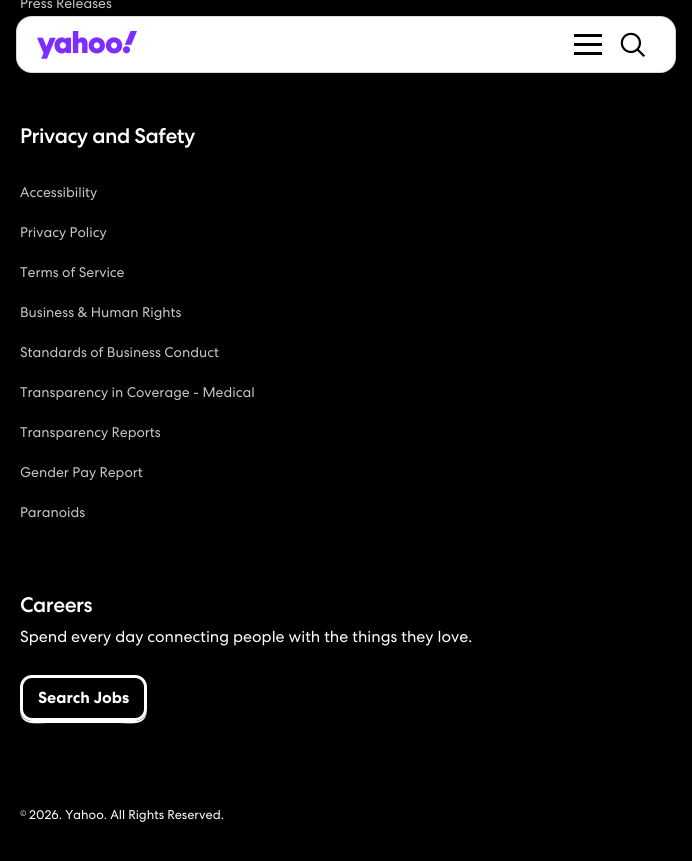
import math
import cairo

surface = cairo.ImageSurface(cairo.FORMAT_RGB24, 692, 861)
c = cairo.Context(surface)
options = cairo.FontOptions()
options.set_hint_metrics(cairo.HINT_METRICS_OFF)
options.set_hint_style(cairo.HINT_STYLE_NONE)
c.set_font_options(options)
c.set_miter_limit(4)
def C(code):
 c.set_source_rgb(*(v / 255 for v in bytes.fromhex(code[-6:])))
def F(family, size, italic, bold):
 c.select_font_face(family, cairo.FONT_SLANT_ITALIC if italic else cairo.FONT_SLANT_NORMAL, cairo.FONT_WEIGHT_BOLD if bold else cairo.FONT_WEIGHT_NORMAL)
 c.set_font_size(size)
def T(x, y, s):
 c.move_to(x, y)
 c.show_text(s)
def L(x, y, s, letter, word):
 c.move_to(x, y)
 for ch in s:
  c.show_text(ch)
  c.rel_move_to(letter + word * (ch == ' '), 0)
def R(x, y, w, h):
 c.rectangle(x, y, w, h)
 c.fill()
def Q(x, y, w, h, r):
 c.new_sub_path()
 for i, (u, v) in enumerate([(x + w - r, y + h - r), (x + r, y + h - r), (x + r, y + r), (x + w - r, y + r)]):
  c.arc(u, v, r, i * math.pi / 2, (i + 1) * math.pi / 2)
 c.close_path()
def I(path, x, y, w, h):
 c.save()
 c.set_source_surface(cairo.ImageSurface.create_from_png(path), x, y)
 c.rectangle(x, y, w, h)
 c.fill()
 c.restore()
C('000000')
c.paint()
F('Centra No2',14,0,0)
C('c5c5c6')
T(20,8,'Press Releases')
F('Centra No2 Medium',21,0,0)
C('ffffff')
L(20,143,'Privacy and Safety',-.5,0)
F('Centra No2',14,0,0)
C('c5c5c6')
T(20,197,'Accessibility')
T(20,237,'Privacy Policy')
T(20,277,'Terms of Service')
T(20,317,'Business & Human Rights')
T(20,357,'Standards of Business Conduct')
T(20,397,'Transparency in Coverage - Medical')
T(20,437,'Transparency Reports')
T(20,477,'Gender Pay Report')
T(20,517,'Paranoids')
F('Centra No2 Medium',21,0,0)
C('ffffff')
L(20,612,'Careers',-.5,0)
F('Centra No2',16,0,0)
T(20,642,'Spend every day connecting people with the things they love.')
c.new_path()
c.move_to(20,709)
c.curve_to(20,727,36,723,49,723)
c.line_to(118,723)
c.curve_to(131,723,147,727,147,709)
c.curve_to(147,716,142,721,135,721)
c.line_to(32,721)
c.curve_to(25,721,20,716,20,709)
c.close_path()
c.fill()
C('000000')
Q(21.5,676.5,124,43,10.5)
c.fill_preserve()
C('ffffff')
c.set_line_width(3)
c.stroke()
F('Centra No2',16,0,1)
T(38,703,'Search Jobs')
F('Centra No2 Light',8,0,0)
T(20,816,'©')
F('Centra No2',12.75,0,0)
T(29,819,'2026. Yahoo. All Rights Reserved.')
Q(16,16,660,57,16)
c.fill()
Q(16.5,16.5,659,56,15.5)
c.set_source_rgba(0,0,0,0.15)
c.set_line_width(1)
c.stroke()
I('1.png',37,31,100,28)
C('000000')
R(574,34,28,3)
R(574,43,28,3)
R(574,52,28,3)
I('2.png',620,32,25,25)
surface.write_to_png('o.png')
